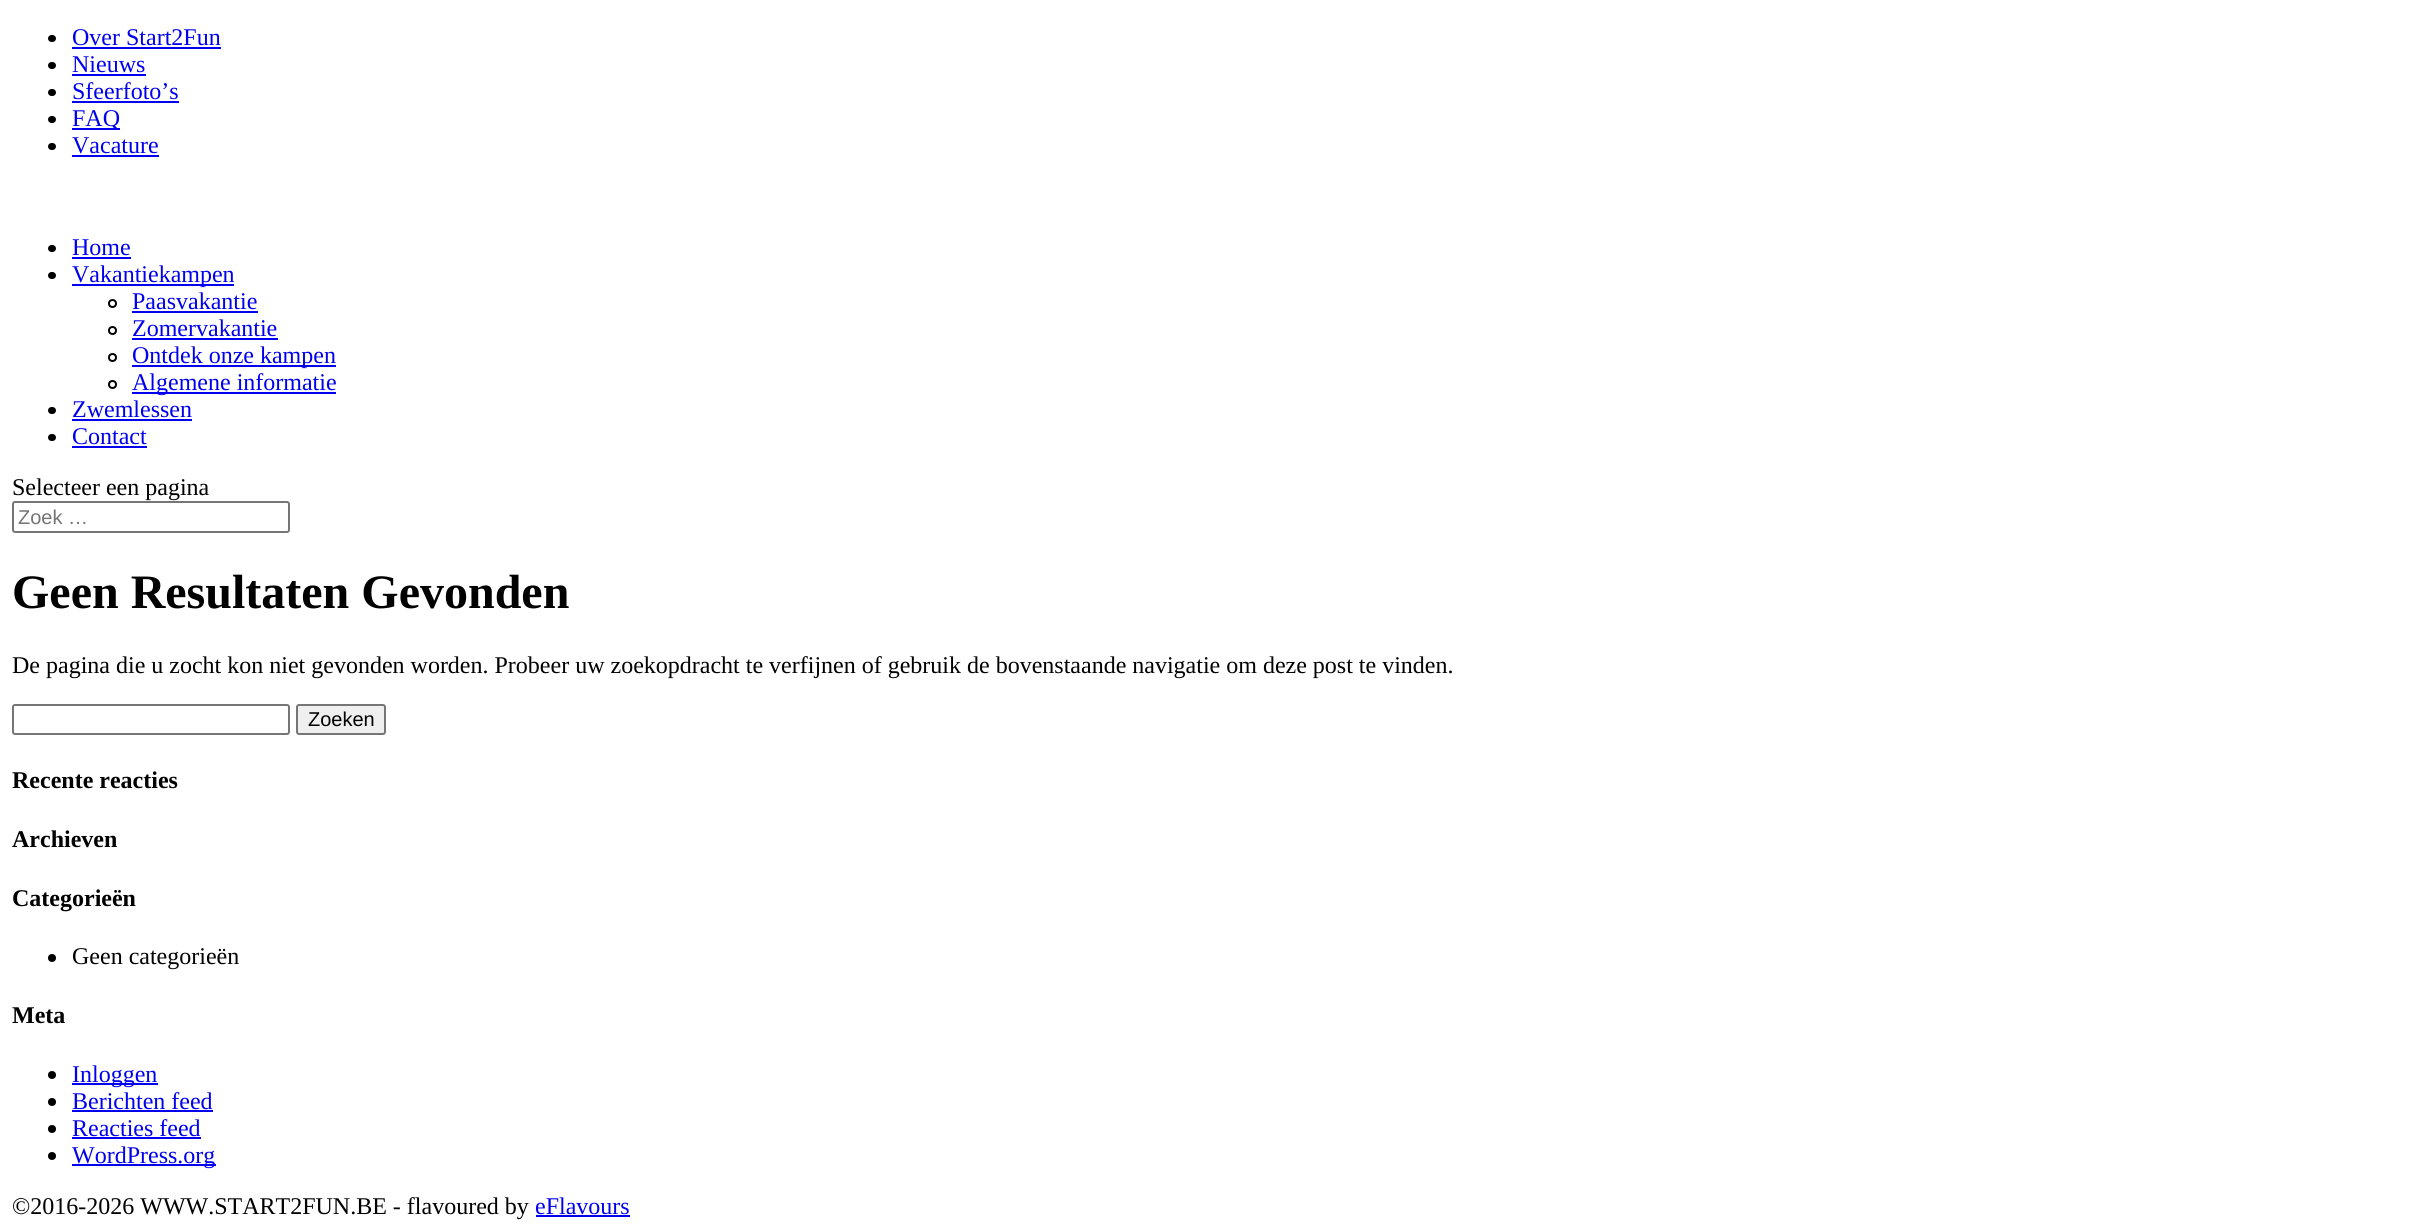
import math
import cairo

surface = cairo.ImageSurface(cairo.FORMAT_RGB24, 2427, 1230)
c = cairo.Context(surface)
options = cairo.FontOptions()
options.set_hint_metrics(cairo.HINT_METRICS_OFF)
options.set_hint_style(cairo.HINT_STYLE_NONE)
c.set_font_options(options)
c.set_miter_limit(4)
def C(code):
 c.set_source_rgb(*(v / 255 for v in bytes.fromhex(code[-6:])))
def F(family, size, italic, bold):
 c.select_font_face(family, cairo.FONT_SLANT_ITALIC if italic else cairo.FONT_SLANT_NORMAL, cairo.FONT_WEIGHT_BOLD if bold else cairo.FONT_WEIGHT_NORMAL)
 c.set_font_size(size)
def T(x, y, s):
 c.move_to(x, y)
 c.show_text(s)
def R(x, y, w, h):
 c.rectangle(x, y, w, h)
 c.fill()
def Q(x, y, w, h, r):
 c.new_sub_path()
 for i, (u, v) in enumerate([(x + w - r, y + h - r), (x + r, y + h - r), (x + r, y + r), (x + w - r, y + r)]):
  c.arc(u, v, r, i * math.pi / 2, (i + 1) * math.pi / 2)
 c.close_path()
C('ffffff')
c.paint()
C('000000')
Q(48,35,8,7,3.5)
c.fill()
F('Liberation Serif',24,0,0)
C('0000ee')
T(72,45,'Over Start2Fun')
R(72,47,149,2)
C('000000')
Q(48,62,8,7,3.5)
c.fill()
C('0000ee')
T(72,72,'Nieuws')
R(72,74,74,2)
C('000000')
Q(48,89,8,7,3.5)
c.fill()
C('0000ee')
T(72,99,'Sfeerfoto’s')
R(72,101,107,2)
C('000000')
Q(48,116,8,7,3.5)
c.fill()
C('0000ee')
R(72,128,48,2)
T(72,126,'FAQ')
C('000000')
Q(48,143,8,7,3.5)
c.fill()
C('0000ee')
T(72,153,'Vacature')
R(72,155,87,2)
C('000000')
Q(48,245,8,7,3.5)
c.fill()
C('0000ee')
T(72,255,'Home')
R(72,257,59,2)
C('000000')
Q(48,272,8,7,3.5)
c.fill()
C('0000ee')
R(72,284,162,2)
T(72,282,'Vakantiekampen')
c.new_path()
c.arc(112.5,303.5,3.5,0,2 * math.pi)
C('000000')
c.stroke()
C('0000ee')
T(132,309,'Paasvakantie')
R(132,311,126,2)
c.new_path()
c.arc(112.5,330.5,3.5,0,2 * math.pi)
C('000000')
c.stroke()
C('0000ee')
T(132,336,'Zomervakantie')
R(132,338,146,2)
c.new_path()
c.arc(112.5,357.5,3.5,0,2 * math.pi)
C('000000')
c.stroke()
C('0000ee')
R(132,365,204,2)
T(132,363,'Ontdek onze kampen')
c.new_path()
c.arc(112.5,384.5,3.5,0,2 * math.pi)
C('000000')
c.stroke()
C('0000ee')
R(132,392,204,2)
T(132,390,'Algemene informatie')
C('000000')
Q(48,407,8,7,3.5)
c.fill()
C('0000ee')
T(72,417,'Zwemlessen')
R(72,419,120,2)
C('000000')
Q(48,434,8,7,3.5)
c.fill()
C('0000ee')
T(72,444,'Contact')
R(72,446,75,2)
C('000000')
T(12,495,'Selecteer een pagina')
Q(13,502,276,30,2)
C('767676')
c.stroke()
F('Liberation Sans',20,0,0)
C('757575')
T(18,524,'Zoek …')
F('Liberation Serif',48,0,1)
C('000000')
T(12,608,'Geen Resultaten Gevonden')
F('Liberation Serif',24,0,0)
T(12,673,'De pagina die u zocht kon niet gevonden worden. Probeer uw zoekopdracht te verfijnen of gebruik de bovenstaande navigatie om deze post te vinden.')
Q(13,705,276,29,2)
C('767676')
c.stroke()
C('efefef')
Q(297,705,88,29,2)
c.fill_preserve()
C('767676')
c.stroke()
F('Liberation Sans',20,0,0)
C('000000')
T(308,726,'Zoeken')
F('Liberation Serif',24,0,1)
T(12,788,'Recente reacties')
T(12,847,'Archieven')
T(12,906,'Categorieën')
c.new_path()
c.arc(52,958,4,0,2 * math.pi)
c.fill()
F('Liberation Serif',24,0,0)
T(72,964,'Geen categorieën')
F('Liberation Serif',24,0,1)
T(12,1023,'Meta')
c.new_path()
c.arc(52,1075,4,0,2 * math.pi)
c.fill()
C('0000ee')
R(72,1083,86,2)
F('Liberation Serif',24,0,0)
T(72,1082,'Inloggen')
C('000000')
c.new_path()
c.arc(52,1102,4,0,2 * math.pi)
c.fill()
C('0000ee')
T(72,1109,'Berichten feed')
R(72,1110,141,2)
C('000000')
c.new_path()
c.arc(52,1129,4,0,2 * math.pi)
c.fill()
C('0000ee')
T(72,1136,'Reacties feed')
R(72,1137,129,2)
C('000000')
c.new_path()
c.arc(52,1156,4,0,2 * math.pi)
c.fill()
C('0000ee')
R(72,1164,144,2)
T(72,1163,'WordPress.org')
C('000000')
T(12,1214,'©2016-2026 WWW.START2FUN.BE - flavoured by')
C('0000ee')
T(535,1214,'eFlavours')
R(536,1215,94,2)
surface.write_to_png('o.png')
